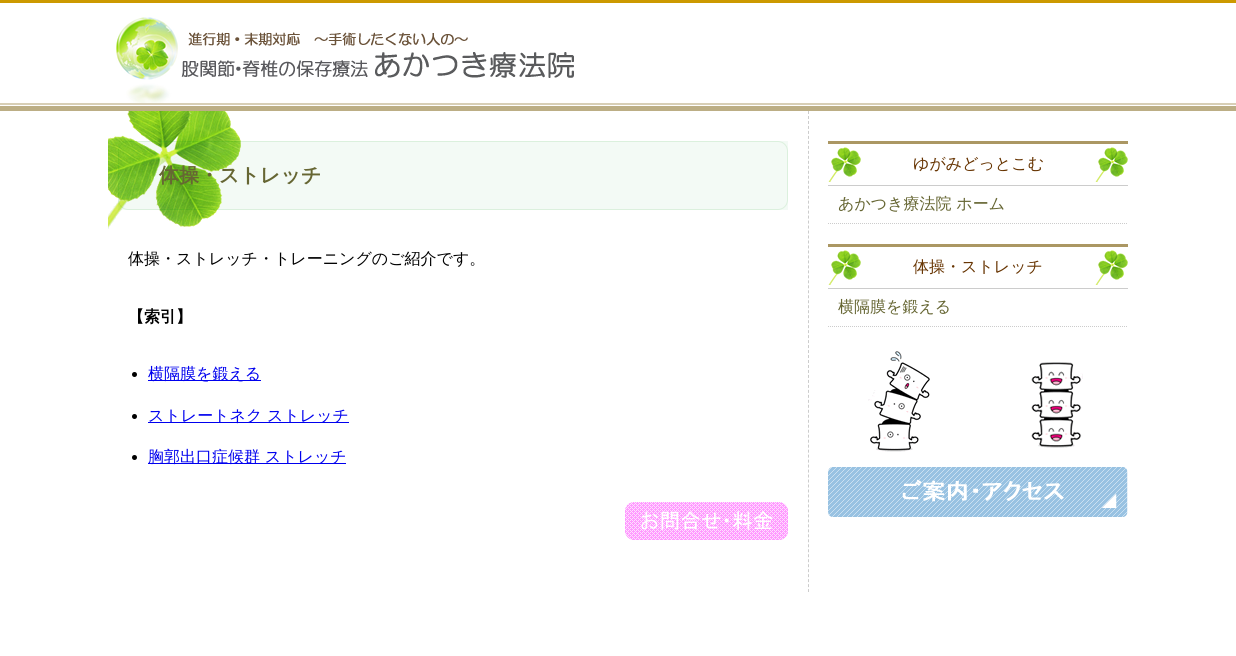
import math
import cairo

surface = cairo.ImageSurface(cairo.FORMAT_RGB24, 1236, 656)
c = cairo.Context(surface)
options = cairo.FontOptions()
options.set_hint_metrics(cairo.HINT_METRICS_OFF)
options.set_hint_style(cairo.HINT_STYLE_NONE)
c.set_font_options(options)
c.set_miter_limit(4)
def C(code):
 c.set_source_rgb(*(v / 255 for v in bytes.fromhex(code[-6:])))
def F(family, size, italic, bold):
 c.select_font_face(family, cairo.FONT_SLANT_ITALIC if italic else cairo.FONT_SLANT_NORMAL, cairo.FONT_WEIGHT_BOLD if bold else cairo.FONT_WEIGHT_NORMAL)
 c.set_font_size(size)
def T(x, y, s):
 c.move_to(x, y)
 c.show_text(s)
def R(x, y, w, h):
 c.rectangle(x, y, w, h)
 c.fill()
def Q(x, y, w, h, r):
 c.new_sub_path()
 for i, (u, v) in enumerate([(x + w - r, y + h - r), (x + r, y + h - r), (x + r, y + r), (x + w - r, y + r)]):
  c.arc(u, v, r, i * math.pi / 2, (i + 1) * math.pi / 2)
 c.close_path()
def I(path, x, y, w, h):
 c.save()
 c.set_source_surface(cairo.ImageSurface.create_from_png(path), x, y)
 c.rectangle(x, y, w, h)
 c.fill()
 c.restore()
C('ffffff')
c.paint()
C('cc9900')
R(0,0,1236,3)
C('bcae85')
R(0,106,1236,5)
C('d8cfb6')
R(0,103,1236,2)
I('1.png',116,17,458,86)
c.new_path()
c.move_to(808.5,111)
c.line_to(808.5,592)
C('cccccc')
c.set_line_width(1)
c.set_dash([3,1.98])
c.stroke()
I('2.png',108,111,133,118)
c.set_source_rgba(0,0.6,0.2,0.05)
R(118,141,670,69)
Q(118.5,141.5,669,68,9.5)
c.set_source_rgba(0,0.6,0,0.1)
c.set_dash([])
c.stroke()
F('WenQuanYi Zen Hei',20,0,1)
C('666633')
T(159,182,'体操・ストレッチ')
F('WenQuanYi Zen Hei Medium',16,0,0)
C('000000')
T(128,264,'体操・ストレッチ・トレーニングのご紹介です。')
F('WenQuanYi Zen Hei',16,0,1)
T(128,322,'【索引】')
c.new_path()
c.arc(134.5,374.5,2.5,0,2 * math.pi)
c.fill()
C('0000ee')
R(148,380,113,1)
F('WenQuanYi Zen Hei Medium',16,0,0)
T(148,379,'横隔膜を鍛える')
C('000000')
c.new_path()
c.arc(134.5,416.5,2.5,0,2 * math.pi)
c.fill()
C('0000ee')
R(148,422,201,1)
T(148,421,'ストレートネク ストレッチ')
C('000000')
c.new_path()
c.arc(134.5,457.5,2.5,0,2 * math.pi)
c.fill()
C('0000ee')
R(148,463,198,1)
T(148,462,'胸郭出口症候群 ストレッチ')
I('3.png',625,502,163,38)
I('4.png',828,147,300,35)
C('ab9763')
R(828,141,300,3)
C('cccccc')
R(828,185,300,1)
C('663300')
T(913,169,'ゆがみどっとこむ')
c.new_path()
c.move_to(828,223.5)
c.line_to(1128,223.5)
C('cccccc')
c.set_dash([1,1])
c.stroke()
C('666633')
T(838,209,'あかつき療法院 ホーム')
I('4.png',828,250,300,35)
C('ab9763')
R(828,244,300,3)
C('cccccc')
R(828,288,300,1)
C('663300')
T(913,272,'体操・ストレッチ')
c.new_path()
c.move_to(828,326.5)
c.line_to(1128,326.5)
C('cccccc')
c.stroke()
C('666633')
T(838,312,'横隔膜を鍛える')
I('5.png',868,351,215,101)
I('6.png',828,467,300,50)
surface.write_to_png('o.png')
